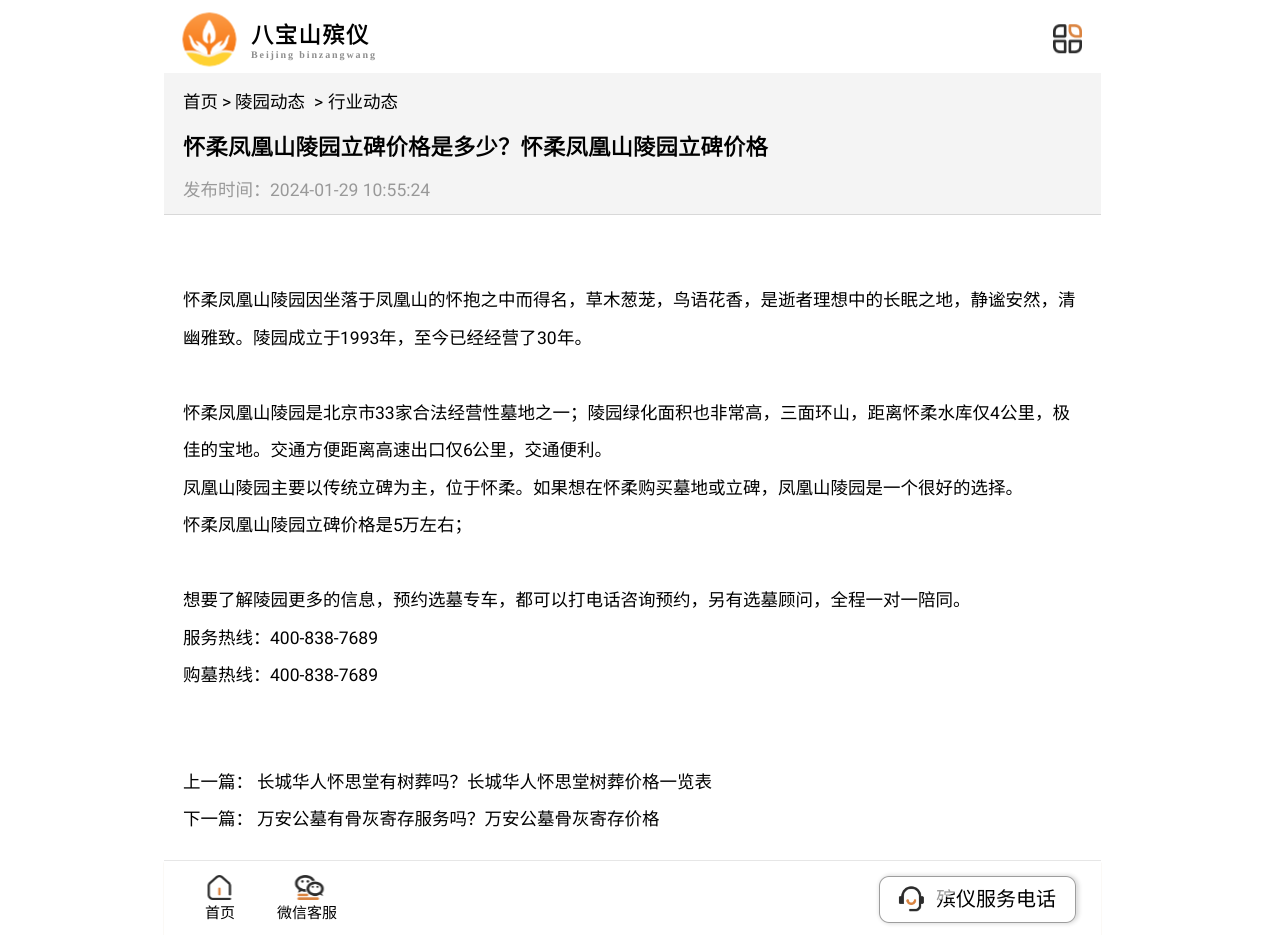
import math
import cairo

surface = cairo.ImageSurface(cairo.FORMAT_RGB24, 1264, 935)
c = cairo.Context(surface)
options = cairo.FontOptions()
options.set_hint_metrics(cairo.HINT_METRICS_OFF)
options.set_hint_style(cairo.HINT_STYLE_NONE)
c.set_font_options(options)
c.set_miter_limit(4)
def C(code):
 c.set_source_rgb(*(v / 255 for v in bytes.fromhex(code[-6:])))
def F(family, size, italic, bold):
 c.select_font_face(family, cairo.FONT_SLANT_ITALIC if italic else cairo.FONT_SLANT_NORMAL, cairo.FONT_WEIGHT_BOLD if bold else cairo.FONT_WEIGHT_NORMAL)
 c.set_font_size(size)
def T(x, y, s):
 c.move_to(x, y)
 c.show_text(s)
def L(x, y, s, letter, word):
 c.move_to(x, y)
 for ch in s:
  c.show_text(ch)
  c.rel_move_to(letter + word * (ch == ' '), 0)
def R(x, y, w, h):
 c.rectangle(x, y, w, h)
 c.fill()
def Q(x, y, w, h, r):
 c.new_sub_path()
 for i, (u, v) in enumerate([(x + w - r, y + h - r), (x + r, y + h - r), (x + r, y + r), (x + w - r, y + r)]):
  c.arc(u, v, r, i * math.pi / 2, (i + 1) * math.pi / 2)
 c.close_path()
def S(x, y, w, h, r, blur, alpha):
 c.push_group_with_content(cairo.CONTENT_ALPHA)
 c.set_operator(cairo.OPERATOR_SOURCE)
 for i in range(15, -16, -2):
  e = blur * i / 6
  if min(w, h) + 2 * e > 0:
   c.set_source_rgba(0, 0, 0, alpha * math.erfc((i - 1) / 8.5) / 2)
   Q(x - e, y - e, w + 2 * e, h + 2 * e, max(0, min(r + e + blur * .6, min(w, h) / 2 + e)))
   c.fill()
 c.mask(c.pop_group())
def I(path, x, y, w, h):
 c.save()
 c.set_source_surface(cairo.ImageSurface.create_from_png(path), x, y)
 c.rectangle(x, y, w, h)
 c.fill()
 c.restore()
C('ffffff')
c.paint()
I('1.png',182,12,55,55)
F('Noto Sans CJK SC',22.5,0,1)
C('000000')
L(251,43,'八宝山殡仪',1.25,0)
F('Liberation Serif',10,0,1)
C('8d8d8d')
L(251,58,'Beijing binzangwang',1.9,0)
I('2.png',1053,24,29,30)
C('f4f4f4')
R(164,73,937,141)
C('d8d8d8')
R(164,214,937,1)
F('Noto Sans CJK SC',17.5,0,0)
C('000000')
T(183,108,'首页')
F('Roboto',17.5,0,0)
T(222,108,'>')
F('Noto Sans CJK SC',17.5,0,0)
T(235,108,'陵园动态')
F('Roboto',17.5,0,0)
T(314,108,'>')
F('Noto Sans CJK SC',17.5,0,0)
T(328,108,'行业动态')
F('Noto Sans CJK SC',22.5,0,1)
T(183,155,'怀柔凤凰山陵园立碑价格是多少？怀柔凤凰山陵园立碑价格')
F('Noto Sans CJK SC',17.5,0,0)
C('999999')
T(183,196,'发布时间：')
F('Roboto',17.5,0,0)
T(270,196,'2024-01-29 10:55:24')
F('Noto Sans CJK SC',17.5,0,0)
C('000000')
T(183,306,'怀柔凤凰山陵园因坐落于凤凰山的怀抱之中而得名，草木葱茏，鸟语花香，是逝者理想中的长眠之地，静谧安然，清')
T(183,344,'幽雅致。陵园成立于')
F('Roboto',17.5,0,0)
T(340,344,'1993')
F('Noto Sans CJK SC',17.5,0,0)
T(379,344,'年，至今已经经营了')
F('Roboto',17.5,0,0)
T(537,344,'30')
F('Noto Sans CJK SC',17.5,0,0)
T(557,344,'年。')
T(183,419,'怀柔凤凰山陵园是北京市')
F('Roboto',17.5,0,0)
T(375,419,'33')
F('Noto Sans CJK SC',17.5,0,0)
T(395,419,'家合法经营性墓地之一；陵园绿化面积也非常高，三面环山，距离怀柔水库仅')
F('Roboto',17.5,0,0)
T(990,419,'4')
F('Noto Sans CJK SC',17.5,0,0)
T(1000,419,'公里，极')
T(183,456,'佳的宝地。交通方便距离高速出口仅')
F('Roboto',17.5,0,0)
T(463,456,'6')
F('Noto Sans CJK SC',17.5,0,0)
T(472,456,'公里，交通便利。')
T(183,494,'凤凰山陵园主要以传统立碑为主，位于怀柔。如果想在怀柔购买墓地或立碑，凤凰山陵园是一个很好的选择。')
T(183,531,'怀柔凤凰山陵园立碑价格是')
F('Roboto',17.5,0,0)
T(393,531,'5')
F('Noto Sans CJK SC',17.5,0,0)
T(402,531,'万左右；')
T(183,606,'想要了解陵园更多的信息，预约选墓专车，都可以打电话咨询预约，另有选墓顾问，全程一对一陪同。')
T(183,644,'服务热线：')
F('Roboto',17.5,0,0)
T(270,644,'400-838-7689')
F('Noto Sans CJK SC',17.5,0,0)
T(183,681,'购墓热线：')
F('Roboto',17.5,0,0)
T(270,681,'400-838-7689')
F('Noto Sans CJK SC',17.5,0,0)
T(183,788,'上一篇：')
T(257,788,'长城华人怀思堂有树葬吗？长城华人怀思堂树葬价格一览表')
T(183,825,'下一篇：')
T(257,825,'万安公墓有骨灰寄存服务吗？万安公墓骨灰寄存价格')
I('3.png',163,862,939,73)
C('ffffff')
R(164,862,937,73)
C('e6e6e6')
R(164,860,937,1)
c.save()
c.set_fill_rule(cairo.FILL_RULE_EVEN_ODD)
c.new_path()
c.move_to(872,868)
c.line_to(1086,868)
c.line_to(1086,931)
c.line_to(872,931)
c.close_path()
c.move_to(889,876)
c.line_to(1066,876)
c.curve_to(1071.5,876,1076,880.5,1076,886)
c.line_to(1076,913)
c.curve_to(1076,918.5,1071.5,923,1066,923)
c.line_to(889,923)
c.curve_to(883.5,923,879,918.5,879,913)
c.line_to(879,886)
c.curve_to(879,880.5,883.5,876,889,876)
c.close_path()
c.clip()
C('8c8c8c')
S(879,875,200,49,11,2,.3)
c.restore()
Q(879.5,876.5,196,46,9.5)
C('9d9d9d')
c.set_line_width(1)
c.stroke()
F('Noto Sans CJK SC',20,0,0)
C('000000')
T(936,906,'殡仪服务电话')
c.set_source_rgba(1,1,1,0.6)
c.new_path()
c.move_to(896,897)
c.line_to(923,881)
c.curve_to(935,874,951,879,957,891)
c.line_to(930,906)
c.curve_to(918,913,903,909,896,897)
c.close_path()
c.fill()
I('4.png',898,886,26,26)
I('5.png',207,875,25,25)
F('Noto Sans CJK SC',15,0,0)
C('000000')
T(205,918,'首页')
I('6.png',294,875,31,25)
T(277,918,'微信客服')
surface.write_to_png('o.png')
